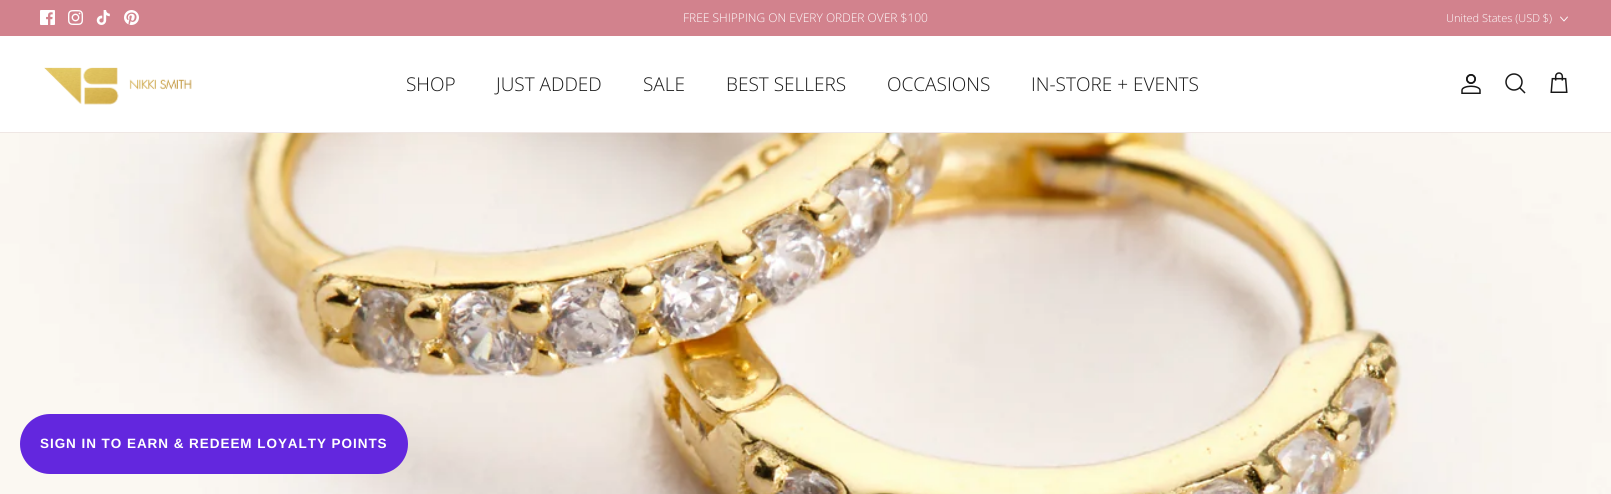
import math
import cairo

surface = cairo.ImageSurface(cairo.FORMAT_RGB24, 1611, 494)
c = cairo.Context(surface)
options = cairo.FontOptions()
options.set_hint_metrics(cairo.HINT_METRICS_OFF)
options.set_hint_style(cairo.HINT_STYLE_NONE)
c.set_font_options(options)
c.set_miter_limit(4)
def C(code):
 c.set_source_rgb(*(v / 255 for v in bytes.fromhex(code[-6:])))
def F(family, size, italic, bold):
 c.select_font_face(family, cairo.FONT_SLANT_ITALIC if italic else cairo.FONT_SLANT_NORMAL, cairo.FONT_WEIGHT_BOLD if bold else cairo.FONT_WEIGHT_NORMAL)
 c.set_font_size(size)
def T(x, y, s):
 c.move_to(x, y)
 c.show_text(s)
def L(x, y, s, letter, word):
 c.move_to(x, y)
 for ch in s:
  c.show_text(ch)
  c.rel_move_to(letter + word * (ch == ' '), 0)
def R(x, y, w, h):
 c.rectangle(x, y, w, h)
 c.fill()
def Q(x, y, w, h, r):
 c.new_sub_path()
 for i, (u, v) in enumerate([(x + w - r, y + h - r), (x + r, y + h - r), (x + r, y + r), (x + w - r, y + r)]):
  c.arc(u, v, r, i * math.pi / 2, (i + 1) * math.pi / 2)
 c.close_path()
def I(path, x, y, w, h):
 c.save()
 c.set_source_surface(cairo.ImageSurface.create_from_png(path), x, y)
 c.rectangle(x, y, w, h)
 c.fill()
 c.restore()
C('ffffff')
c.paint()
C('d2828d')
R(0,0,1611,36)
I('1.png',40,10,15,15)
I('2.png',68,10,15,15)
I('3.png',96,10,14,15)
I('4.png',124,10,15,15)
F('Open Sans Light',12,0,0)
C('ffffff')
T(683,22,'FREE SHIPPING ON EVERY ORDER OVER $100')
F('Open Sans Light',11,0,0)
T(1446,22,'United States (USD $)')
c.new_path()
c.move_to(1560.5,17)
c.line_to(1564,21)
c.line_to(1567.5,17)
c.set_line_width(.9)
c.set_line_cap(cairo.LINE_CAP_ROUND)
c.set_line_join(cairo.LINE_JOIN_ROUND)
c.stroke()
C('efe7e4')
R(0,132,1611,1)
I('5.png',44,67,148,38)
F('Open Sans Light',19,0,0)
C('171717')
T(406,91,'SHOP')
T(496,91,'JUST ADDED')
T(643,91,'SALE')
T(726,91,'BEST SELLERS')
T(887,91,'OCCASIONS')
T(1031,91,'IN-STORE + EVENTS')
I('6.png',1461,74,20,20)
c.arc(1514,82,8,0,2 * math.pi)
c.set_line_width(1.5)
c.set_line_cap(cairo.LINE_CAP_BUTT)
c.set_line_join(cairo.LINE_JOIN_MITER)
c.stroke()
c.new_path()
c.move_to(1520,88)
c.line_to(1524.5,92.5)
c.set_line_cap(cairo.LINE_CAP_SQUARE)
c.stroke()
I('7.png',1550,72,18,21)
I('8.png',0,133,1611,361)
C('6327de')
Q(20,414,388,60,30)
c.fill()
F('Liberation Sans',13.5,0,1)
C('ffffff')
L(40,448,'SIGN IN TO EARN & REDEEM LOYALTY POINTS',.95,0)
surface.write_to_png('o.png')
